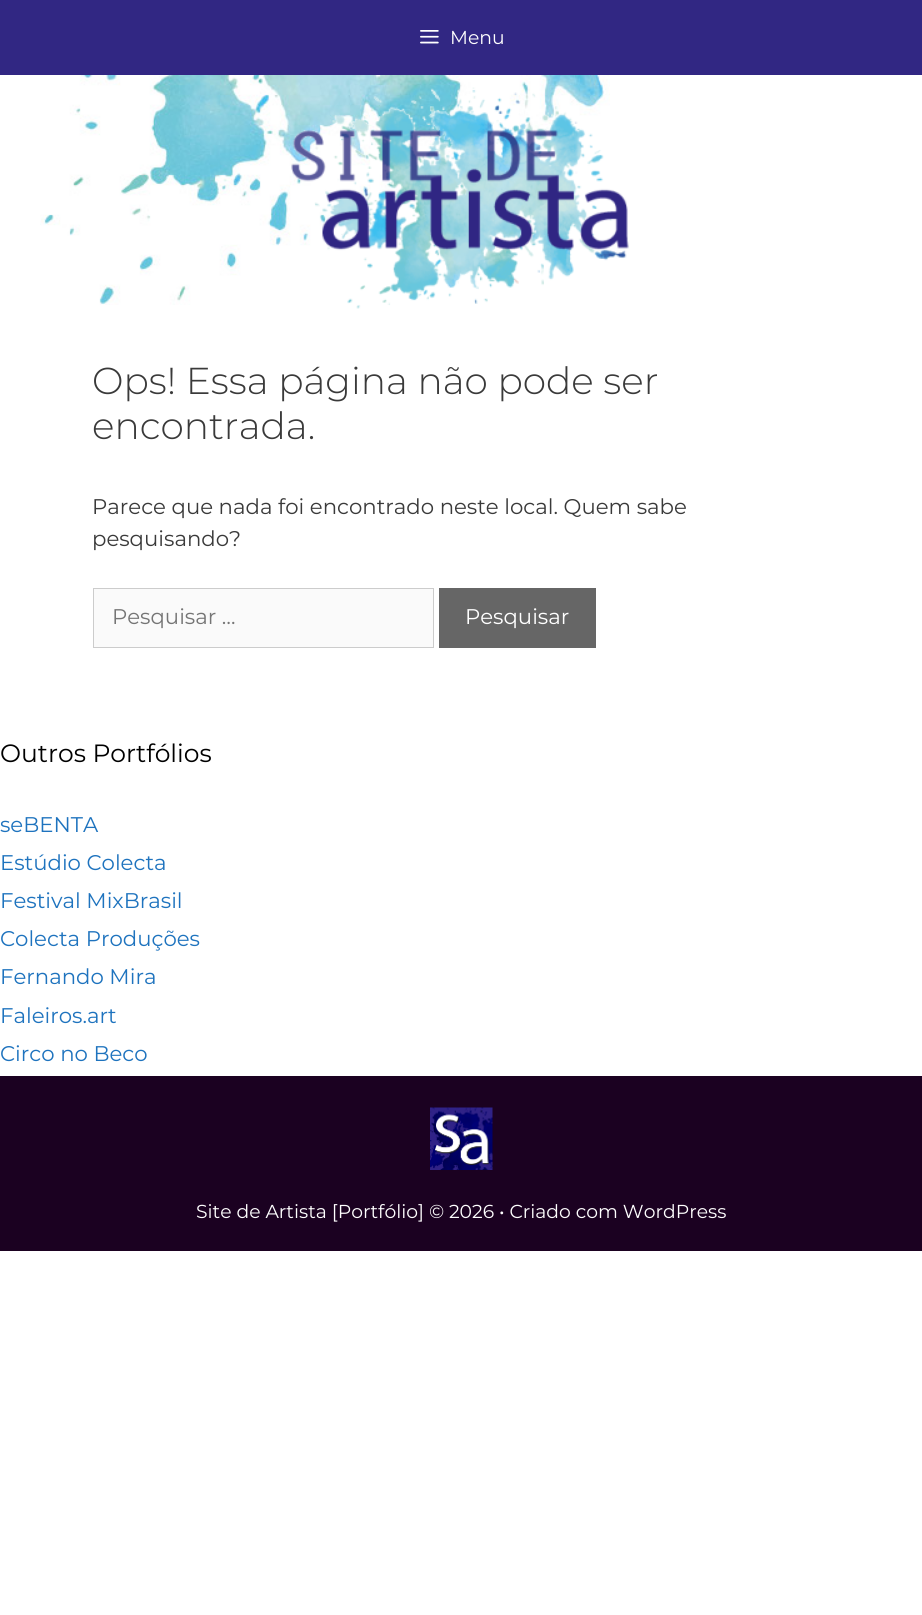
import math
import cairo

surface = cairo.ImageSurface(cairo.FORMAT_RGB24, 922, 1615)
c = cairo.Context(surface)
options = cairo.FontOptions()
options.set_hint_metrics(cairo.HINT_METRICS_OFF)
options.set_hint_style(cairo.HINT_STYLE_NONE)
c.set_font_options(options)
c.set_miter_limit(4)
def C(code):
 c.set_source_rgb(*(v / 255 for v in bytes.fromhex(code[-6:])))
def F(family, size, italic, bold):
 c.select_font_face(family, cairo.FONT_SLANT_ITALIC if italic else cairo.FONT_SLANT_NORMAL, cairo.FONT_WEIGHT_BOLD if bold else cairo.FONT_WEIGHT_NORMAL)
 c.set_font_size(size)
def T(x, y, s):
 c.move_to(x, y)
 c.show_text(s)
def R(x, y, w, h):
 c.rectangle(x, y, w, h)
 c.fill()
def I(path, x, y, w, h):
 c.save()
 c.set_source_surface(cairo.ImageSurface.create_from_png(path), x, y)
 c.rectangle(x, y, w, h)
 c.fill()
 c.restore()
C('ffffff')
c.paint()
C('312783')
R(0,0,922,75)
I('1.png',420,30,19,14)
F('Montserrat',18.75,0,0)
C('ffffff')
T(450,44,'Menu')
I('2.png',40,75,570,230)
I('3.png',291,87,338,222)
F('Montserrat Light',37.5,0,0)
C('3a3a3a')
T(92,394,'Ops! Essa página não pode ser')
T(92,439,'encontrada.')
F('Montserrat',21.25,0,0)
T(92,514,'Parece que nada foi encontrado neste local. Quem sabe')
T(92,546,'pesquisando?')
C('fafafa')
c.rectangle(93.5,588.5,340,59)
c.fill_preserve()
C('cccccc')
c.set_line_width(1)
c.stroke()
C('757575')
T(112,624,'Pesquisar …')
C('666666')
R(439,588,157,60)
C('ffffff')
T(465,624,'Pesquisar')
F('Montserrat',25,0,0)
C('000000')
T(0,762,'Outros Portfólios')
F('Montserrat',21.25,0,0)
C('1e73be')
T(0,832,'seBENTA')
T(0,870,'Estúdio Colecta')
T(0,908,'Festival MixBrasil')
T(0,946,'Colecta Produções')
T(0,984,'Fernando Mira')
T(0,1023,'Faleiros.art')
T(0,1061,'Circo no Beco')
C('1b0121')
R(0,1076,922,175)
I('4.png',430,1107,63,63)
F('Montserrat',18.75,0,0)
C('ffffff')
T(196,1218,'Site de Artista [Portfólio] © 2026 • Criado com WordPress')
surface.write_to_png('o.png')
